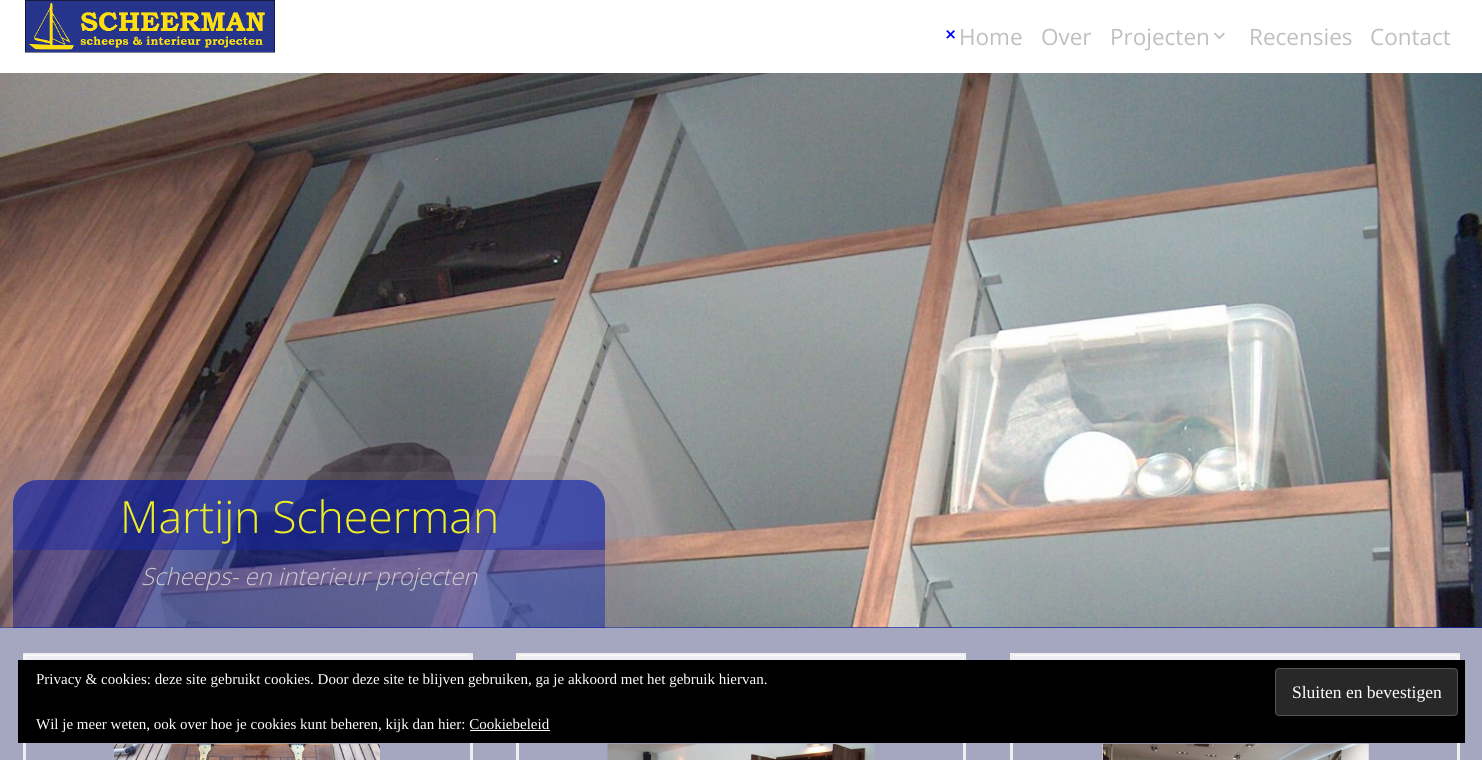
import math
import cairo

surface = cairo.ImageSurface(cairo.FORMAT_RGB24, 1482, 760)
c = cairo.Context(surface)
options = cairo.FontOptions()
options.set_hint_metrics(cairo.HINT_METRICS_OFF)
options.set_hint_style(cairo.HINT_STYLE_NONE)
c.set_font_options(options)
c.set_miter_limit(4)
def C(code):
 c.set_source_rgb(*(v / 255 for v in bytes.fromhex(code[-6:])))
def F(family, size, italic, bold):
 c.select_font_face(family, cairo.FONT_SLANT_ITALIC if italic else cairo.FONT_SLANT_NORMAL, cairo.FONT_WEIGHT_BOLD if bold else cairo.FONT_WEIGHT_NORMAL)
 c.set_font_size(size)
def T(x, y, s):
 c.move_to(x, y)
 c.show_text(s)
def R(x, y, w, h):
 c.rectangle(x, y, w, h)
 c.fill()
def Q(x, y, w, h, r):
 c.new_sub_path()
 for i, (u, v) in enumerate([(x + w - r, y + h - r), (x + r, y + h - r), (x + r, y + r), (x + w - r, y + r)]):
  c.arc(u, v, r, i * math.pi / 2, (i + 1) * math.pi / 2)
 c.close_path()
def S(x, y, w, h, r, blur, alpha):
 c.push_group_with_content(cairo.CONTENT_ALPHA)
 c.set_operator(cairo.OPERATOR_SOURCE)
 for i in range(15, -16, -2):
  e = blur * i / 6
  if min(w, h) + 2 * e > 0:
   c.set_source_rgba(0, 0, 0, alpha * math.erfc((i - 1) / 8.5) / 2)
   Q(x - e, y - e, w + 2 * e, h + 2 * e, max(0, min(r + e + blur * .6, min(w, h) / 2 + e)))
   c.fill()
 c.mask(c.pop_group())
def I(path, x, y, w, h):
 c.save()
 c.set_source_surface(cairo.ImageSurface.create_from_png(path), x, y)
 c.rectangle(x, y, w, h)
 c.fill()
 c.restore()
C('1a2aa5')
c.paint()
C('ffffff')
R(0,0,1482,73)
I('1.png',25,0,250,53)
I('2.png',946,30,9,9)
F('Open Sans',22.5,0,0)
C('bfbfbf')
T(959,45,'Home')
T(1041,45,'Over')
T(1110,45,'Projecten')
I('3.png',1213,32,12,8)
T(1249,45,'Recensies')
T(1370,45,'Contact')
I('4.png',0,73,1482,555)
C('a4a7bf')
R(0,628,1482,132)
c.save()
c.rectangle(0,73,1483,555)
c.clip()
c.set_fill_rule(cairo.FILL_RULE_EVEN_ODD)
c.new_path()
c.move_to(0,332)
c.line_to(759,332)
c.line_to(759,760)
c.line_to(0,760)
c.close_path()
c.move_to(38,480)
c.line_to(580,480)
c.curve_to(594,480,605,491,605,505)
c.line_to(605,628)
c.line_to(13,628)
c.line_to(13,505)
c.curve_to(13,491,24,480,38,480)
c.close_path()
c.clip()
C('8a7b8a')
S(4,480,607,163,33,49,1)
c.restore()
c.set_source_rgba(0.102,0.165,0.647,0.5)
c.new_path()
c.move_to(38,480)
c.line_to(580,480)
c.curve_to(594,480,605,491,605,505)
c.line_to(605,628)
c.line_to(13,628)
c.line_to(13,505)
c.curve_to(13,491,24,480,38,480)
c.close_path()
c.fill()
c.new_path()
c.move_to(38,480)
c.line_to(580,480)
c.curve_to(594,480,605,491,605,505)
c.line_to(605,550)
c.line_to(13,550)
c.line_to(13,505)
c.curve_to(13,491,24,480,38,480)
c.close_path()
c.fill()
F('Open Sans Light',44.5,0,0)
C('eeee22')
T(120,533,'Martijn Scheerman')
F('Open Sans Light',23.75,1,0)
C('cccccc')
T(141,585,'Scheeps- en interieur projecten')
c.rectangle(24.5,654.5,447,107)
C('eeeeee')
c.set_line_width(3)
c.stroke()
c.set_source_rgba(1,1,1,0.8)
R(25,655,445,5)
I('5.png',113,743,267,17)
c.rectangle(517.5,654.5,447,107)
C('eeeeee')
c.stroke()
c.set_source_rgba(1,1,1,0.8)
R(519,655,445,5)
I('6.png',607,743,268,17)
c.rectangle(1011.5,654.5,447,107)
C('eeeeee')
c.stroke()
c.set_source_rgba(1,1,1,0.8)
R(1013,655,445,5)
I('7.png',1102,743,267,17)
C('000000')
R(18,660,1447,83)
F('Liberation Serif',15,0,0)
C('ffffff')
T(36,684,'Privacy & cookies: deze site gebruikt cookies. Door deze site te blijven gebruiken, ga je akkoord met het gebruik hiervan.')
C('282828')
Q(1275.5,668.5,182,47,3.5)
c.fill_preserve()
C('535353')
c.set_line_width(1)
c.stroke()
F('Liberation Serif',17.5,0,0)
C('ffffff')
T(1292,698,'Sluiten en bevestigen')
F('Liberation Serif',15,0,0)
T(36,729,'Wil je meer weten, ook over hoe je cookies kunt beheren, kijk dan hier: Cookiebeleid')
R(470,730,80,1)
surface.write_to_png('o.png')
